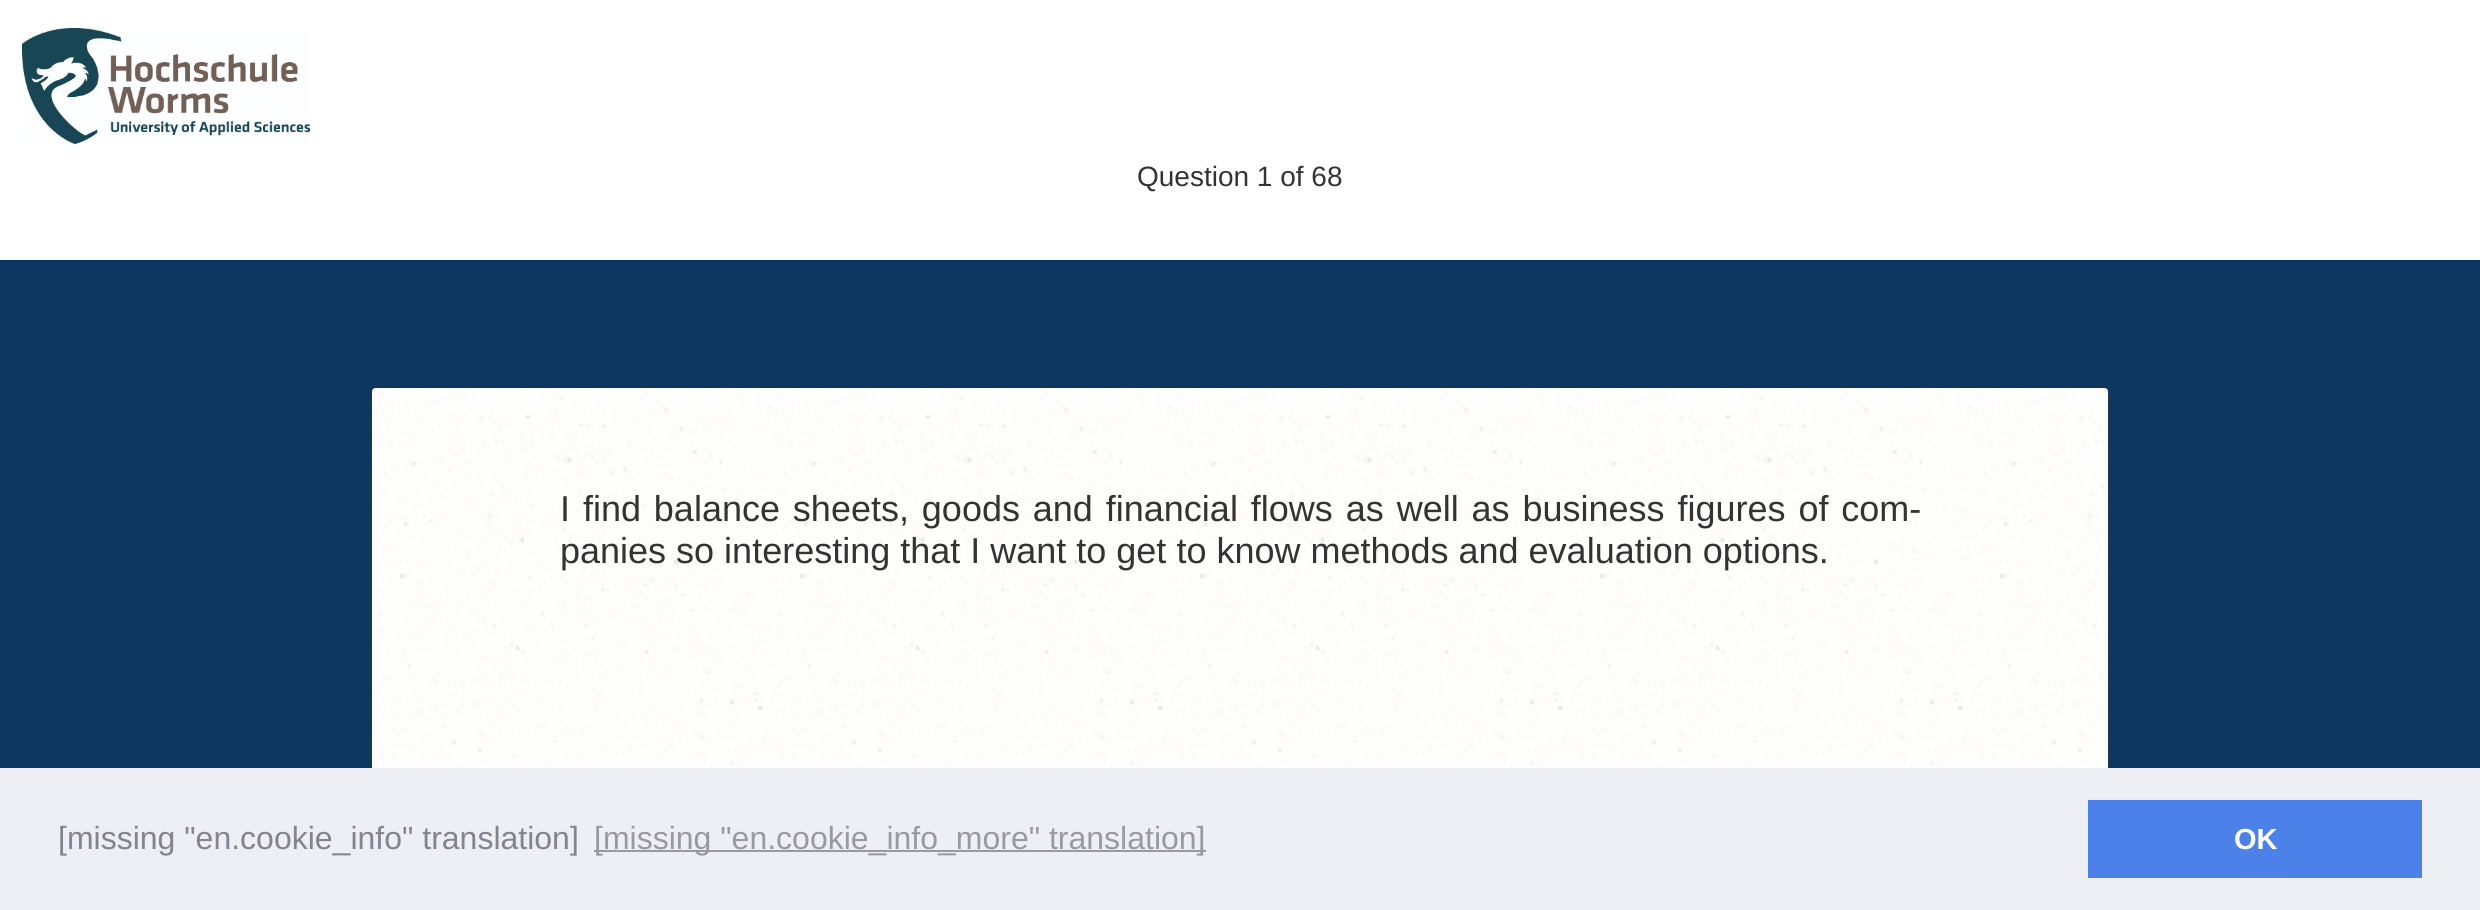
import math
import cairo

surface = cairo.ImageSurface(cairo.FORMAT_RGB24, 2480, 910)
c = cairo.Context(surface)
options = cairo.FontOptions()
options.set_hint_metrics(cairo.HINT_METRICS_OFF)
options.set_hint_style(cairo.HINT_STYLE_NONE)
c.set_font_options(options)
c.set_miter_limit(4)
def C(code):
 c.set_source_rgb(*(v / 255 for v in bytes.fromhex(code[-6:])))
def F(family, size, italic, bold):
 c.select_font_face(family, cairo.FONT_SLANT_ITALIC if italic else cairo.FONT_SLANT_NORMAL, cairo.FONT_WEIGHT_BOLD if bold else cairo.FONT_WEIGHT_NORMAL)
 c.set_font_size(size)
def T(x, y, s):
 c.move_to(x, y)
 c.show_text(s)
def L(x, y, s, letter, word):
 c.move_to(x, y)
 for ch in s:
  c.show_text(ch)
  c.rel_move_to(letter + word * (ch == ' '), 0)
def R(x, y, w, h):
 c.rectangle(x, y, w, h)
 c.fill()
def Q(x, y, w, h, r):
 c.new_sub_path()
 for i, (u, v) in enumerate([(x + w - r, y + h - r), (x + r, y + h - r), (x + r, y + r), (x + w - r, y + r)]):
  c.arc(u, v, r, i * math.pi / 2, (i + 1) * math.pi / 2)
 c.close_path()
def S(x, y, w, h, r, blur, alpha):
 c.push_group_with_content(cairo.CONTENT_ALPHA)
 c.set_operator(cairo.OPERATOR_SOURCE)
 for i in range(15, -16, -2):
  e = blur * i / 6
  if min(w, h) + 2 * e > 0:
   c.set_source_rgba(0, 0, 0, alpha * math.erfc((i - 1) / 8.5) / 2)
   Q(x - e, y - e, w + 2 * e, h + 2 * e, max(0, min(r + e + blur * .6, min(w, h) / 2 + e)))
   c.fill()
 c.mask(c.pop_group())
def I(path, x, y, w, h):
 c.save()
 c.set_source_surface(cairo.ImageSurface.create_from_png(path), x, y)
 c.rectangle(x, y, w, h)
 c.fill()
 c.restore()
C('0d3661')
c.paint()
C('ffffff')
R(0,0,2480,260)
I('1.png',22,28,288,116)
F('Liberation Sans',28,0,0)
C('333333')
T(1137,186,'Question 1 of 68')
C('333333')
S(372,392,1736,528,4,2,1)
I('2.png',372,388,1736,380)
F('Liberation Sans',36,0,0)
C('333333')
L(560,521,'I find balance sheets, goods and financial flows as well as business figures of com-',0,2.9)
T(560,563,'panies so interesting that I want to get to know methods and evaluation options.')
C('edeff5')
R(0,768,2480,142)
F('Liberation Sans',32,0,0)
C('838391')
T(58,849,'[missing "en.cookie_info" translation]')
C('9899a5')
R(594,850,612,2)
T(594,849,'[missing "en.cookie_info_more" translation]')
C('4b81e8')
R(2088,800,334,78)
F('Liberation Sans',29,0,1)
C('ffffff')
T(2234,849,'OK')
surface.write_to_png('o.png')
